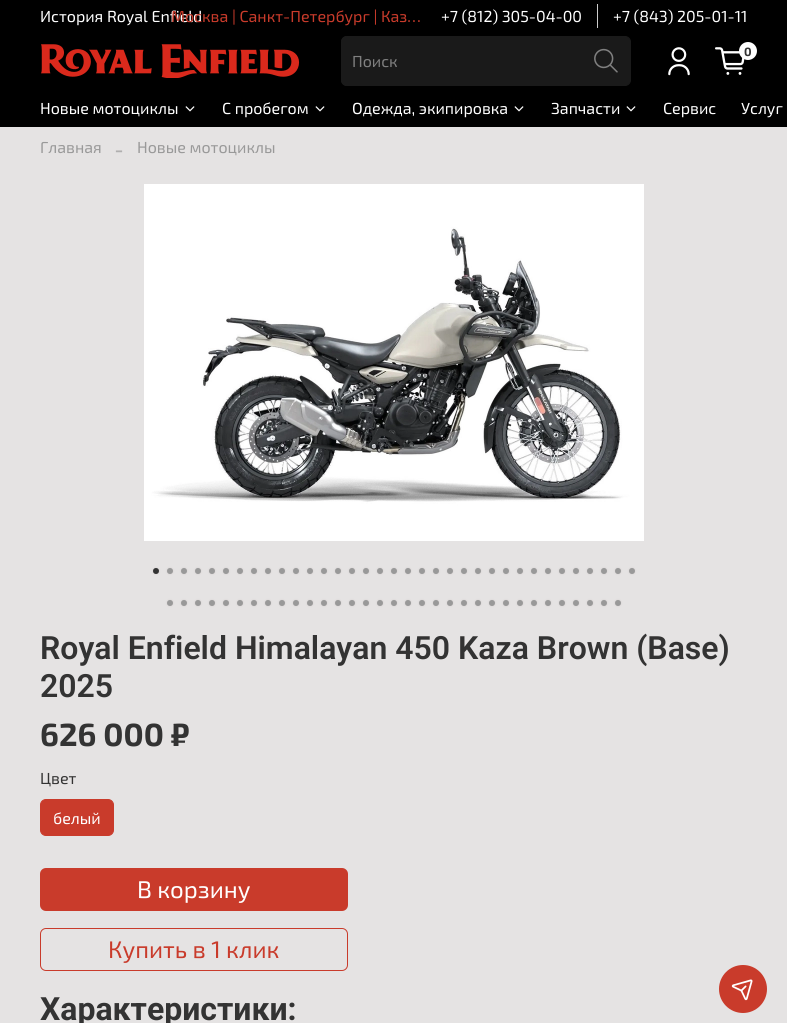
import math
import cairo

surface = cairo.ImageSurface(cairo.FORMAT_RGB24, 787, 1023)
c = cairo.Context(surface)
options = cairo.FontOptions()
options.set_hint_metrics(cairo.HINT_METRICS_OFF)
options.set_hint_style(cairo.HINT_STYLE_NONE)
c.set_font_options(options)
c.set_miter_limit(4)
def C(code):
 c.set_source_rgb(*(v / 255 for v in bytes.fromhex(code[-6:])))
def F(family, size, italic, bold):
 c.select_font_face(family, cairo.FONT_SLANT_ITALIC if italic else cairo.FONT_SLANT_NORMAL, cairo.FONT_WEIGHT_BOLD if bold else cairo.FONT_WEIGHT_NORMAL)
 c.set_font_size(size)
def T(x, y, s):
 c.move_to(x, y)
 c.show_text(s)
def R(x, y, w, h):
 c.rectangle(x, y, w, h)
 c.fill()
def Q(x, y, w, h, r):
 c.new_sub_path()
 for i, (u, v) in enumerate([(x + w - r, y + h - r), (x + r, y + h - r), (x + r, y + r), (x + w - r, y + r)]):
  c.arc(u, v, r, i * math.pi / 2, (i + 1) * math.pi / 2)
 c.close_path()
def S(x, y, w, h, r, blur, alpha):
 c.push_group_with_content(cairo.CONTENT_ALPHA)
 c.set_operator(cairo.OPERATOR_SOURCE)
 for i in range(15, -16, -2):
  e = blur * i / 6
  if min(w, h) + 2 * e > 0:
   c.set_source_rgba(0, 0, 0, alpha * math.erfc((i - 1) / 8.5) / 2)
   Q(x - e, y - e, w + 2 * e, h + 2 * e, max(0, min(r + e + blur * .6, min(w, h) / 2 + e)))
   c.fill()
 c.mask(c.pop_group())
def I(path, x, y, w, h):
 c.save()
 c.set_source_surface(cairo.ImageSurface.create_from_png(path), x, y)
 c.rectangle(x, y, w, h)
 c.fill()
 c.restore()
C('e5e3e3')
c.paint()
C('000000')
R(0,0,787,127)
F('Exo 2',16,0,0)
C('ffffff')
T(40,22,'История Royal Enfield')
C('c93b2b')
T(171,22,'Москва | Санкт-Петербург | Каз…')
C('cccccc')
R(597,4,1,24)
C('ffffff')
T(441,22,'+7 (812) 305-04-00')
T(613,22,'+7 (843) 205-01-11')
I('1.png',41,44,259,34)
I('2.png',668,47,22,29)
I('3.png',715,47,30,28)
c.arc(748,51,9,0,2 * math.pi)
c.fill()
F('Exo 2',12,0,1)
C('333333')
T(744,56,'0')
C('1a1a1a')
c.new_path()
c.move_to(347,36)
c.line_to(581,36)
c.line_to(581,86)
c.line_to(347,86)
c.curve_to(343.5,86,341,83.5,341,80)
c.line_to(341,42)
c.curve_to(341,38.5,343.5,36,347,36)
c.close_path()
c.fill()
c.set_fill_rule(cairo.FILL_RULE_EVEN_ODD)
c.new_path()
c.move_to(347,36)
c.line_to(581,36)
c.line_to(581,86)
c.line_to(347,86)
c.curve_to(344,86,341,83,341,80)
c.line_to(341,42)
c.curve_to(341,39,344,36,347,36)
c.close_path()
c.move_to(347,37)
c.line_to(581,37)
c.line_to(581,85)
c.line_to(347,85)
c.curve_to(344,85,342,83,342,80)
c.line_to(342,42)
c.curve_to(342,39,344,37,347,37)
c.close_path()
c.fill()
F('Exo 2',16,0,0)
C('808080')
T(352,67,'Поиск')
C('1a1a1a')
c.new_path()
c.move_to(581.5,36.5)
c.line_to(625,36.5)
c.curve_to(628,36.5,630.5,39,630.5,42)
c.line_to(630.5,80)
c.curve_to(630.5,83,628,85.5,625,85.5)
c.line_to(581.5,85.5)
c.close_path()
c.fill_preserve()
c.set_line_width(1)
c.stroke()
I('4.png',594,48,24,25)
C('ffffff')
T(40,114,'Новые мотоциклы')
I('5.png',185,106,10,6)
T(222,114,'С пробегом')
I('5.png',315,106,10,6)
T(352,114,'Одежда, экипировка')
I('5.png',514,106,10,6)
T(551,114,'Запчасти')
I('5.png',626,106,10,6)
T(663,114,'Сервис')
T(741,114,'Услуг')
C('999999')
T(40,153,'Главная')
F('Liberation Serif',24,0,0)
C('b0afaf')
T(115,157,'-')
F('Exo 2',16,0,0)
C('999999')
T(137,153,'Новые мотоциклы')
I('6.png',144,184,500,357)
C('d5d1d1')
S(153,568,6,6,3,1,1)
C('333333')
c.arc(156,571,3,0,2 * math.pi)
c.fill()
C('d5d1d1')
S(167,568,6,6,3,1,1)
C('999999')
c.arc(170,571,3,0,2 * math.pi)
c.fill()
C('d5d1d1')
S(181,568,6,6,3,1,1)
C('999999')
c.arc(184,571,3,0,2 * math.pi)
c.fill()
C('d5d1d1')
S(195,568,6,6,3,1,1)
C('999999')
c.arc(198,571,3,0,2 * math.pi)
c.fill()
C('d5d1d1')
S(209,568,6,6,3,1,1)
C('999999')
c.arc(212,571,3,0,2 * math.pi)
c.fill()
C('d5d1d1')
S(223,568,6,6,3,1,1)
C('999999')
c.arc(226,571,3,0,2 * math.pi)
c.fill()
C('d5d1d1')
S(237,568,6,6,3,1,1)
C('999999')
c.arc(240,571,3,0,2 * math.pi)
c.fill()
C('d5d1d1')
S(251,568,6,6,3,1,1)
C('999999')
c.arc(254,571,3,0,2 * math.pi)
c.fill()
C('d5d1d1')
S(265,568,6,6,3,1,1)
C('999999')
c.arc(268,571,3,0,2 * math.pi)
c.fill()
C('d5d1d1')
S(279,568,6,6,3,1,1)
C('999999')
c.arc(282,571,3,0,2 * math.pi)
c.fill()
C('d5d1d1')
S(293,568,6,6,3,1,1)
C('999999')
c.arc(296,571,3,0,2 * math.pi)
c.fill()
C('d5d1d1')
S(307,568,6,6,3,1,1)
C('999999')
c.arc(310,571,3,0,2 * math.pi)
c.fill()
C('d5d1d1')
S(321,568,6,6,3,1,1)
C('999999')
c.arc(324,571,3,0,2 * math.pi)
c.fill()
C('d5d1d1')
S(335,568,6,6,3,1,1)
C('999999')
c.arc(338,571,3,0,2 * math.pi)
c.fill()
C('d5d1d1')
S(349,568,6,6,3,1,1)
C('999999')
c.arc(352,571,3,0,2 * math.pi)
c.fill()
C('d5d1d1')
S(363,568,6,6,3,1,1)
C('999999')
c.arc(366,571,3,0,2 * math.pi)
c.fill()
C('d5d1d1')
S(377,568,6,6,3,1,1)
C('999999')
c.arc(380,571,3,0,2 * math.pi)
c.fill()
C('d5d1d1')
S(391,568,6,6,3,1,1)
C('999999')
c.arc(394,571,3,0,2 * math.pi)
c.fill()
C('d5d1d1')
S(405,568,6,6,3,1,1)
C('999999')
c.arc(408,571,3,0,2 * math.pi)
c.fill()
C('d5d1d1')
S(419,568,6,6,3,1,1)
C('999999')
c.arc(422,571,3,0,2 * math.pi)
c.fill()
C('d5d1d1')
S(433,568,6,6,3,1,1)
C('999999')
c.arc(436,571,3,0,2 * math.pi)
c.fill()
C('d5d1d1')
S(447,568,6,6,3,1,1)
C('999999')
c.arc(450,571,3,0,2 * math.pi)
c.fill()
C('d5d1d1')
S(461,568,6,6,3,1,1)
C('999999')
c.arc(464,571,3,0,2 * math.pi)
c.fill()
C('d5d1d1')
S(475,568,6,6,3,1,1)
C('999999')
c.arc(478,571,3,0,2 * math.pi)
c.fill()
C('d5d1d1')
S(489,568,6,6,3,1,1)
C('999999')
c.arc(492,571,3,0,2 * math.pi)
c.fill()
C('d5d1d1')
S(503,568,6,6,3,1,1)
C('999999')
c.arc(506,571,3,0,2 * math.pi)
c.fill()
C('d5d1d1')
S(517,568,6,6,3,1,1)
C('999999')
c.arc(520,571,3,0,2 * math.pi)
c.fill()
C('d5d1d1')
S(531,568,6,6,3,1,1)
C('999999')
c.arc(534,571,3,0,2 * math.pi)
c.fill()
C('d5d1d1')
S(545,568,6,6,3,1,1)
C('999999')
c.arc(548,571,3,0,2 * math.pi)
c.fill()
C('d5d1d1')
S(559,568,6,6,3,1,1)
C('999999')
c.arc(562,571,3,0,2 * math.pi)
c.fill()
C('d5d1d1')
S(573,568,6,6,3,1,1)
C('999999')
c.arc(576,571,3,0,2 * math.pi)
c.fill()
C('d5d1d1')
S(587,568,6,6,3,1,1)
C('999999')
c.arc(590,571,3,0,2 * math.pi)
c.fill()
C('d5d1d1')
S(601,568,6,6,3,1,1)
C('999999')
c.arc(604,571,3,0,2 * math.pi)
c.fill()
C('d5d1d1')
S(615,568,6,6,3,1,1)
C('999999')
c.arc(618,571,3,0,2 * math.pi)
c.fill()
C('d5d1d1')
S(629,568,6,6,3,1,1)
C('999999')
c.arc(632,571,3,0,2 * math.pi)
c.fill()
C('d5d1d1')
S(167,600,6,6,3,1,1)
C('999999')
c.arc(170,603,3,0,2 * math.pi)
c.fill()
C('d5d1d1')
S(181,600,6,6,3,1,1)
C('999999')
c.arc(184,603,3,0,2 * math.pi)
c.fill()
C('d5d1d1')
S(195,600,6,6,3,1,1)
C('999999')
c.arc(198,603,3,0,2 * math.pi)
c.fill()
C('d5d1d1')
S(209,600,6,6,3,1,1)
C('999999')
c.arc(212,603,3,0,2 * math.pi)
c.fill()
C('d5d1d1')
S(223,600,6,6,3,1,1)
C('999999')
c.arc(226,603,3,0,2 * math.pi)
c.fill()
C('d5d1d1')
S(237,600,6,6,3,1,1)
C('999999')
c.arc(240,603,3,0,2 * math.pi)
c.fill()
C('d5d1d1')
S(251,600,6,6,3,1,1)
C('999999')
c.arc(254,603,3,0,2 * math.pi)
c.fill()
C('d5d1d1')
S(265,600,6,6,3,1,1)
C('999999')
c.arc(268,603,3,0,2 * math.pi)
c.fill()
C('d5d1d1')
S(279,600,6,6,3,1,1)
C('999999')
c.arc(282,603,3,0,2 * math.pi)
c.fill()
C('d5d1d1')
S(293,600,6,6,3,1,1)
C('999999')
c.arc(296,603,3,0,2 * math.pi)
c.fill()
C('d5d1d1')
S(307,600,6,6,3,1,1)
C('999999')
c.arc(310,603,3,0,2 * math.pi)
c.fill()
C('d5d1d1')
S(321,600,6,6,3,1,1)
C('999999')
c.arc(324,603,3,0,2 * math.pi)
c.fill()
C('d5d1d1')
S(335,600,6,6,3,1,1)
C('999999')
c.arc(338,603,3,0,2 * math.pi)
c.fill()
C('d5d1d1')
S(349,600,6,6,3,1,1)
C('999999')
c.arc(352,603,3,0,2 * math.pi)
c.fill()
C('d5d1d1')
S(363,600,6,6,3,1,1)
C('999999')
c.arc(366,603,3,0,2 * math.pi)
c.fill()
C('d5d1d1')
S(377,600,6,6,3,1,1)
C('999999')
c.arc(380,603,3,0,2 * math.pi)
c.fill()
C('d5d1d1')
S(391,600,6,6,3,1,1)
C('999999')
c.arc(394,603,3,0,2 * math.pi)
c.fill()
C('d5d1d1')
S(405,600,6,6,3,1,1)
C('999999')
c.arc(408,603,3,0,2 * math.pi)
c.fill()
C('d5d1d1')
S(419,600,6,6,3,1,1)
C('999999')
c.arc(422,603,3,0,2 * math.pi)
c.fill()
C('d5d1d1')
S(433,600,6,6,3,1,1)
C('999999')
c.arc(436,603,3,0,2 * math.pi)
c.fill()
C('d5d1d1')
S(447,600,6,6,3,1,1)
C('999999')
c.arc(450,603,3,0,2 * math.pi)
c.fill()
C('d5d1d1')
S(461,600,6,6,3,1,1)
C('999999')
c.arc(464,603,3,0,2 * math.pi)
c.fill()
C('d5d1d1')
S(475,600,6,6,3,1,1)
C('999999')
c.arc(478,603,3,0,2 * math.pi)
c.fill()
C('d5d1d1')
S(489,600,6,6,3,1,1)
C('999999')
c.arc(492,603,3,0,2 * math.pi)
c.fill()
C('d5d1d1')
S(503,600,6,6,3,1,1)
C('999999')
c.arc(506,603,3,0,2 * math.pi)
c.fill()
C('d5d1d1')
S(517,600,6,6,3,1,1)
C('999999')
c.arc(520,603,3,0,2 * math.pi)
c.fill()
C('d5d1d1')
S(531,600,6,6,3,1,1)
C('999999')
c.arc(534,603,3,0,2 * math.pi)
c.fill()
C('d5d1d1')
S(545,600,6,6,3,1,1)
C('999999')
c.arc(548,603,3,0,2 * math.pi)
c.fill()
C('d5d1d1')
S(559,600,6,6,3,1,1)
C('999999')
c.arc(562,603,3,0,2 * math.pi)
c.fill()
C('d5d1d1')
S(573,600,6,6,3,1,1)
C('999999')
c.arc(576,603,3,0,2 * math.pi)
c.fill()
C('d5d1d1')
S(587,600,6,6,3,1,1)
C('999999')
c.arc(590,603,3,0,2 * math.pi)
c.fill()
C('d5d1d1')
S(601,600,6,6,3,1,1)
C('999999')
c.arc(604,603,3,0,2 * math.pi)
c.fill()
C('d5d1d1')
S(615,600,6,6,3,1,1)
C('999999')
c.arc(618,603,3,0,2 * math.pi)
c.fill()
F('Roboto SemiBold',32,0,0)
C('333333')
T(40,659,'Royal Enfield Himalayan 450 Kaza Brown (Base)')
T(40,697,'2025')
F('Exo 2',32,0,1)
T(40,746,'626 000 ₽')
F('Exo 2',16,0,0)
T(40,784,'Цвет')
C('c93b2b')
Q(40.5,799.5,73,36,5.5)
c.fill_preserve()
c.stroke()
C('ffffff')
T(53,824,'белый')
C('c93b2b')
Q(40,868,308,43,6)
c.fill()
F('Exo 2',24,0,0)
C('ffffff')
T(137,898,'В корзину')
Q(40.5,928.5,307,42,5.5)
C('c93b2b')
c.stroke()
T(108,958,'Купить в 1 клик')
F('Roboto',32,0,1)
C('333333')
T(40,1020,'Характеристики:')
C('c93b2b')
c.new_path()
c.arc(743,989,24,0,2 * math.pi)
c.fill()
I('7.png',731,979,22,22)
surface.write_to_png('o.png')
